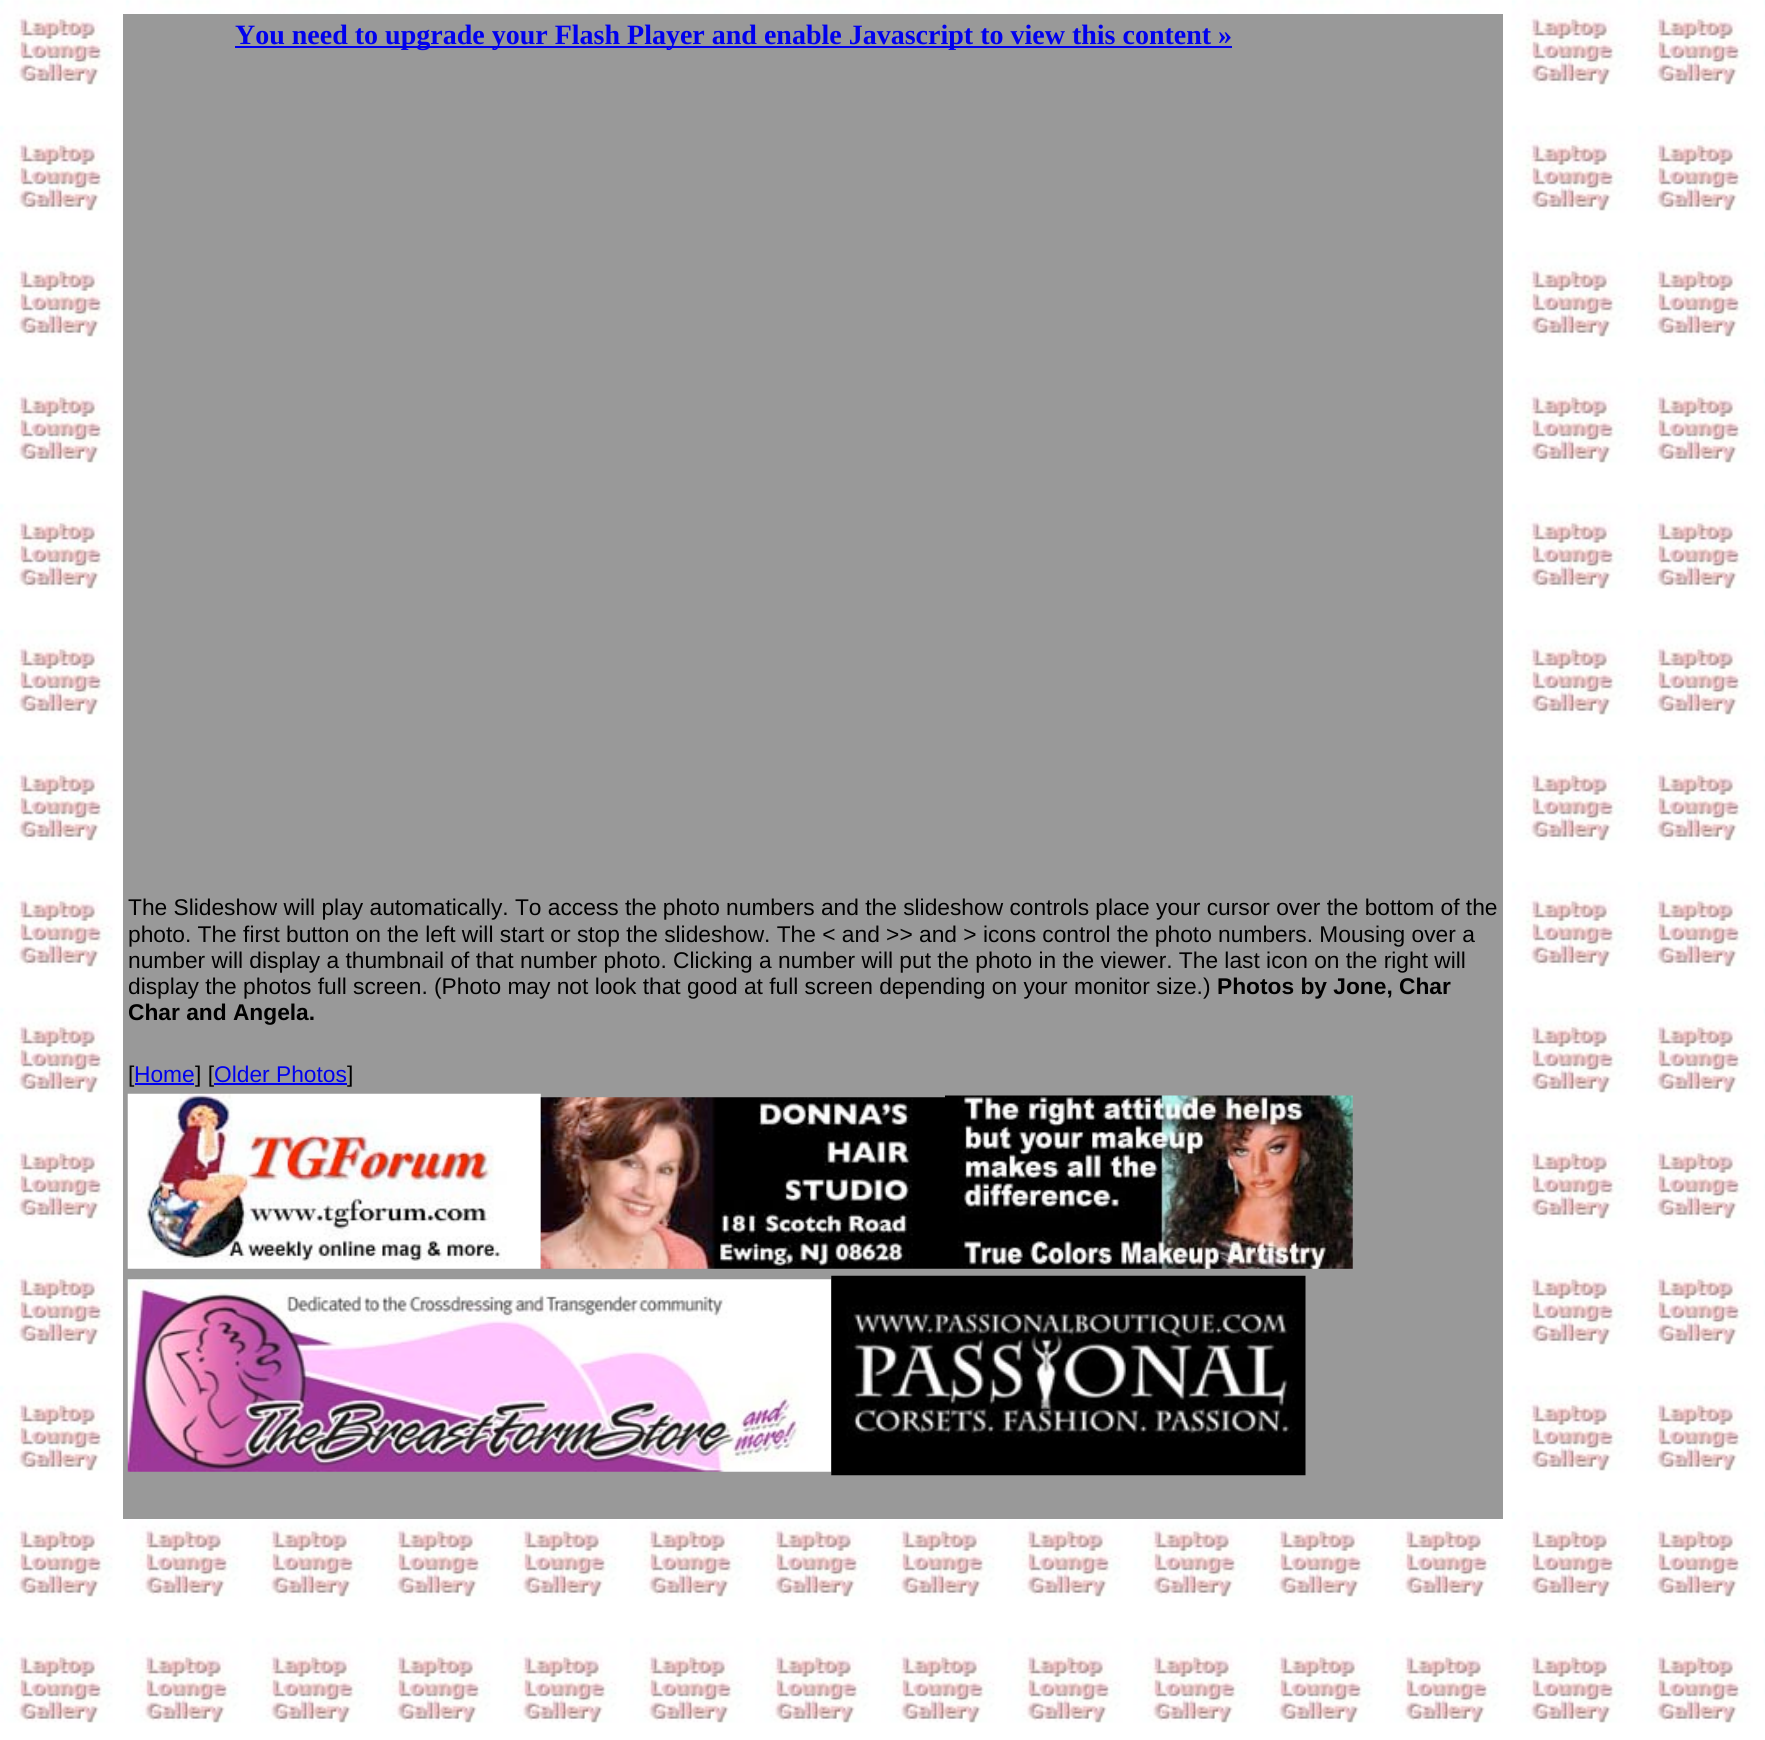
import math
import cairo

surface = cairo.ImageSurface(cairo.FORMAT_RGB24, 1765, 1740)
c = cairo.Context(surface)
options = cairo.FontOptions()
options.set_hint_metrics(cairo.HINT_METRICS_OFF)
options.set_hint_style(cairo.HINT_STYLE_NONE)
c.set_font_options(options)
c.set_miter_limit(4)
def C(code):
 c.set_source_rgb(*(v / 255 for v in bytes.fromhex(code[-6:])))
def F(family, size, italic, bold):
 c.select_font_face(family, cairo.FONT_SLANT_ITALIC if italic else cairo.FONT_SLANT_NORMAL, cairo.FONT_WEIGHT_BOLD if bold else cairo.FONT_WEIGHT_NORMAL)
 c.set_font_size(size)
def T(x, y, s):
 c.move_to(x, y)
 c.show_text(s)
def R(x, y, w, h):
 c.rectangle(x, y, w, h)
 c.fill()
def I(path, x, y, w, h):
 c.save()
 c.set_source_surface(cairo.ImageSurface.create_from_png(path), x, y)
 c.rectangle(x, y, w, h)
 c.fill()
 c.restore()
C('ffffff')
c.paint()
I('1.png',0,0,1765,1723)
C('999999')
R(123,14,1380,1505)
C('0000ee')
R(235,46,997,2)
F('Liberation Serif',28,0,1)
T(235,44,'You need to upgrade your Flash Player and enable Javascript to view this content »')
F('Liberation Sans',22.75,0,0)
C('000000')
T(128,915,'The Slideshow will play automatically. To access the photo numbers and the slideshow controls place your cursor over the bottom of the')
T(128,942,'photo. The first button on the left will start or stop the slideshow. The < and >> and > icons control the photo numbers. Mousing over a')
T(128,968,'number will display a thumbnail of that number photo. Clicking a number will put the photo in the viewer. The last icon on the right will')
T(128,994,'display the photos full screen. (Photo may not look that good at full screen depending on your monitor size.)')
F('Liberation Sans',22.75,0,1)
T(1217,994,'Photos by Jone, Char')
T(128,1020,'Char and Angela.')
F('Liberation Sans',22.75,0,0)
T(128,1082,'[')
C('0000ee')
T(134,1082,'Home')
C('000000')
T(195,1082,'] [')
C('0000ee')
R(135,1083,59,2)
R(214,1083,133,2)
T(214,1082,'Older Photos')
C('000000')
T(347,1082,']')
I('2.png',127,1093,414,176)
I('3.png',540,1097,405,172)
I('4.png',945,1095,408,174)
I('5.png',127,1279,705,193)
I('6.png',831,1275,475,201)
surface.write_to_png('o.png')
